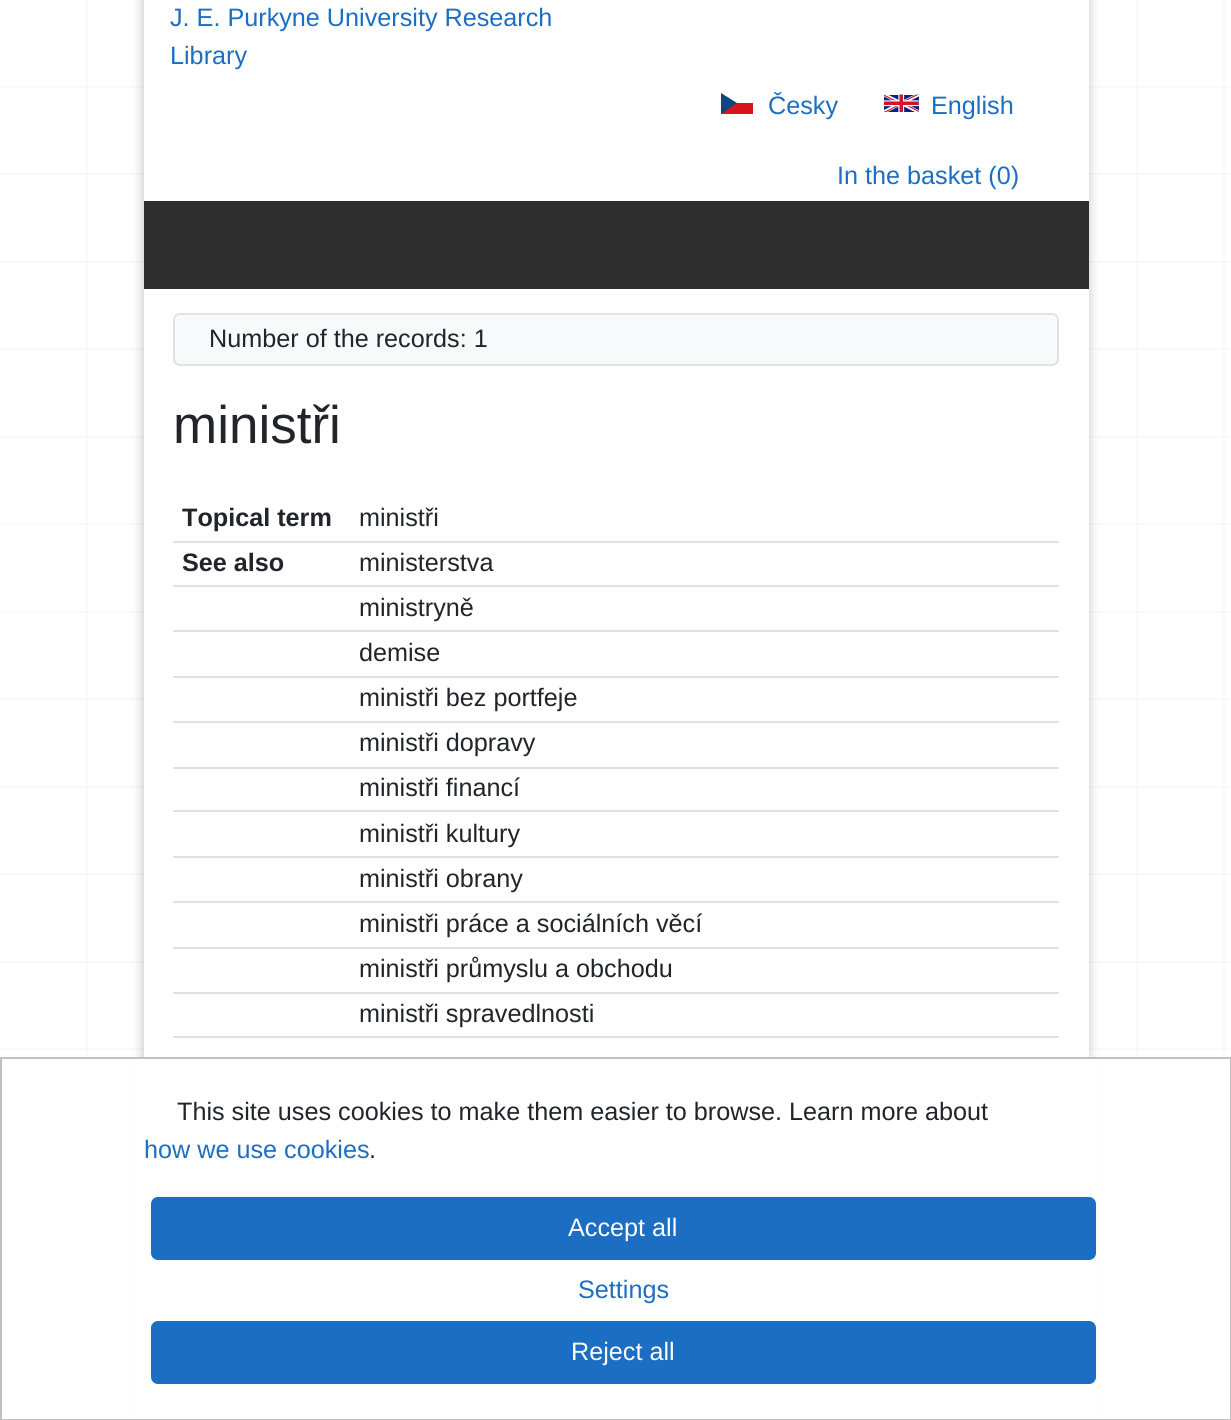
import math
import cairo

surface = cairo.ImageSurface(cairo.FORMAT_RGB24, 1231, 1420)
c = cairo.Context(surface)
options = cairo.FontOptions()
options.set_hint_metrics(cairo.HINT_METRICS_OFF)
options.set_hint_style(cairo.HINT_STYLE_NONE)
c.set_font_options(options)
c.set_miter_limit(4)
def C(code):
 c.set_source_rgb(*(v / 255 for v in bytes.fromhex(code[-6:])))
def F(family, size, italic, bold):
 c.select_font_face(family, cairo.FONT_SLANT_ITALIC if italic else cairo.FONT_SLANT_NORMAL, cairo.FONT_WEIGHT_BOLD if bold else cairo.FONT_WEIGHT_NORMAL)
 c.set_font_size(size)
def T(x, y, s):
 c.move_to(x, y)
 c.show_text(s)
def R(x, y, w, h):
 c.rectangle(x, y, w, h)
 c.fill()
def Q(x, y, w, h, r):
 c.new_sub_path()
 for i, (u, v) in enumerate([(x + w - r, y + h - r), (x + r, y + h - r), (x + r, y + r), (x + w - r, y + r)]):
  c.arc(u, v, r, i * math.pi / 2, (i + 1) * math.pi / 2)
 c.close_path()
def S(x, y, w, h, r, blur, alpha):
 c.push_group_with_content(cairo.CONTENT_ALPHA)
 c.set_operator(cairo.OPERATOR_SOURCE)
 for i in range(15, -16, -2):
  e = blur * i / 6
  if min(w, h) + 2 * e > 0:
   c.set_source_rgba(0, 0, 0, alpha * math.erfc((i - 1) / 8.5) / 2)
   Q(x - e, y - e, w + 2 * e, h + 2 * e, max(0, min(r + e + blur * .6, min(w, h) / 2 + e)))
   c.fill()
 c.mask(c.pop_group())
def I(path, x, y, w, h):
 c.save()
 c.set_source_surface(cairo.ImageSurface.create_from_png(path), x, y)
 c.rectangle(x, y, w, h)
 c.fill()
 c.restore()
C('ffffff')
c.paint()
C('f8f9fa')
R(86,0,2,1057)
R(1136,0,2,1057)
R(1223,0,2,1057)
R(0,86,1231,2)
R(0,173,1231,2)
R(0,261,1231,2)
R(0,348,1231,2)
R(0,436,1231,2)
R(0,523,1231,2)
R(0,611,1231,2)
R(0,698,1231,2)
R(0,786,1231,2)
R(0,873,1231,2)
R(0,961,1231,2)
R(0,1048,1231,2)
C('000000')
S(142,-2,948,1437,0,5,.2)
C('ffffff')
R(144,0,945,1057)
F('Liberation Sans',25.2,0,0)
C('1b6ec2')
T(170,26,'J. E. Purkyne University Research')
T(170,64,'Library')
C('d7141a')
R(721,103,32,11)
C('11457e')
c.new_path()
c.move_to(737,103)
c.line_to(721,93)
c.line_to(721,114)
c.close_path()
c.fill()
C('1b6ec2')
T(768,114,'Česky')
I('1.png',884,94,35,18)
T(931,114,'English')
T(837,184,'In the basket (0)')
C('2e2e2e')
R(144,201,945,88)
C('f8f9fa')
Q(173,313,886,53,7)
c.fill()
Q(174,314,884,51,6)
c.set_source_rgba(0.2,0.2,0.2,0.12)
c.stroke()
C('212529')
T(209,347,'Number of the records: 1')
F('Liberation Sans',53,0,0)
T(173,443,'ministři')
F('Liberation Sans',25.2,0,1)
T(182,526,'Topical term')
F('Liberation Sans',25.2,0,0)
T(359,526,'ministři')
F('Liberation Sans',25.2,0,1)
T(182,571,'See also')
C('dee2e6')
R(173,541,886,2)
F('Liberation Sans',25.2,0,0)
C('212529')
T(359,571,'ministerstva')
C('dee2e6')
R(173,585,886,2)
C('212529')
T(359,616,'ministryně')
C('dee2e6')
R(173,630,886,2)
C('212529')
T(359,661,'demise')
C('dee2e6')
R(173,676,886,2)
C('212529')
T(359,706,'ministři bez portfeje')
C('dee2e6')
R(173,721,886,2)
C('212529')
T(359,751,'ministři dopravy')
C('dee2e6')
R(173,767,886,2)
C('212529')
T(359,796,'ministři financí')
C('dee2e6')
R(173,810,886,2)
C('212529')
T(359,842,'ministři kultury')
C('dee2e6')
R(173,856,886,2)
C('212529')
T(359,887,'ministři obrany')
C('dee2e6')
R(173,901,886,2)
C('212529')
T(359,932,'ministři práce a sociálních věcí')
C('dee2e6')
R(173,947,886,2)
C('212529')
T(359,977,'ministři průmyslu a obchodu')
C('dee2e6')
R(173,992,886,2)
C('212529')
T(359,1022,'ministři spravedlnosti')
C('dee2e6')
R(173,1036,886,2)
C('ffffff')
R(134,1059,964,360)
c.rectangle(1,1058,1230,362)
C('c0c0c0')
c.stroke()
C('212529')
T(177,1120,'This site uses cookies to make them easier to browse. Learn more about')
C('1b6ec2')
T(144,1158,'how we use cookies')
C('212529')
T(369,1158,'.')
C('1b6ec2')
Q(152,1198,943,61,6)
c.fill_preserve()
c.stroke()
C('ffffff')
T(568,1236,'Accept all')
C('1b6ec2')
T(578,1298,'Settings')
Q(152,1322,943,61,6)
c.fill_preserve()
c.stroke()
C('ffffff')
T(571,1360,'Reject all')
surface.write_to_png('o.png')
